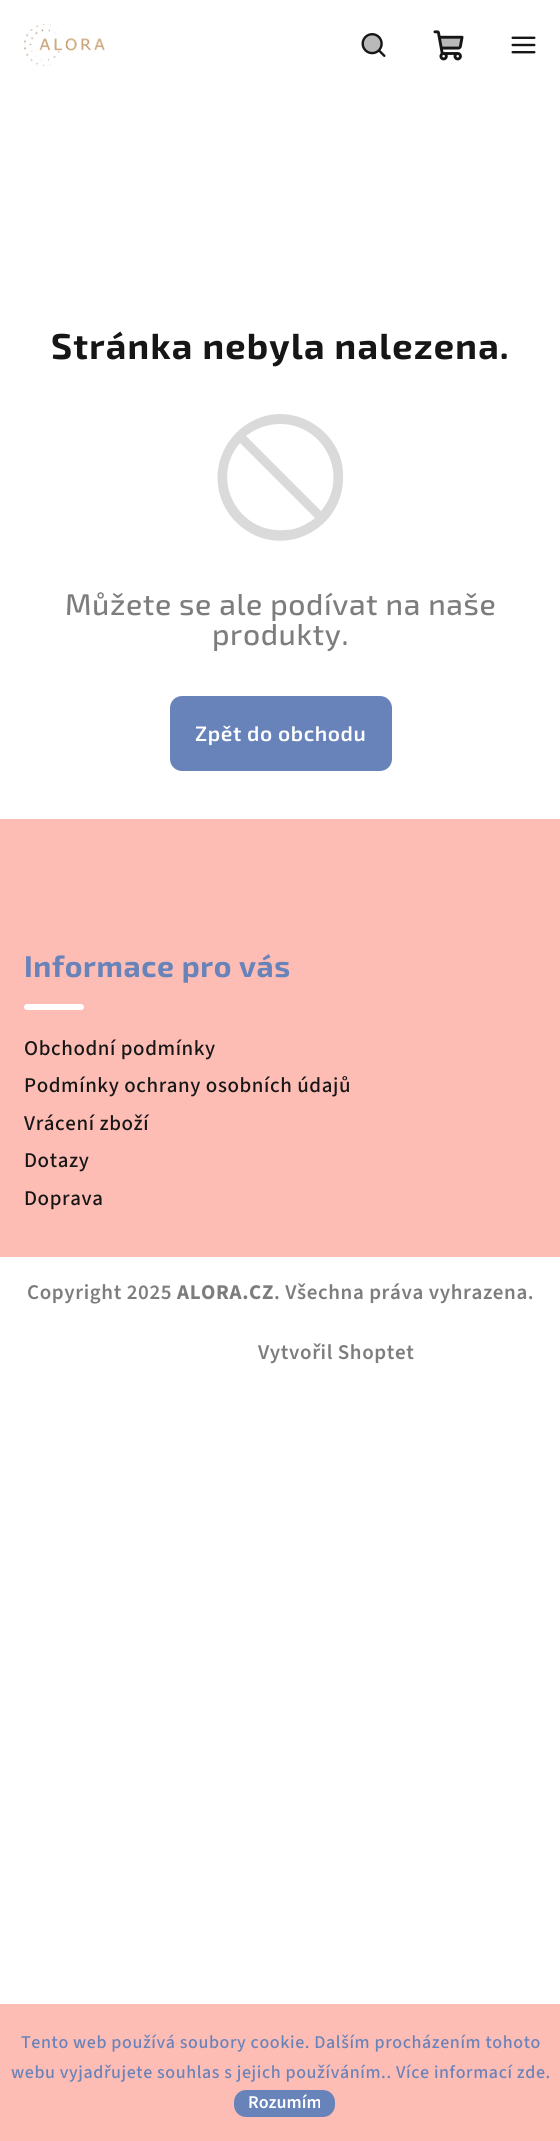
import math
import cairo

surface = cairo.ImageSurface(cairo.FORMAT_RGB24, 560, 2141)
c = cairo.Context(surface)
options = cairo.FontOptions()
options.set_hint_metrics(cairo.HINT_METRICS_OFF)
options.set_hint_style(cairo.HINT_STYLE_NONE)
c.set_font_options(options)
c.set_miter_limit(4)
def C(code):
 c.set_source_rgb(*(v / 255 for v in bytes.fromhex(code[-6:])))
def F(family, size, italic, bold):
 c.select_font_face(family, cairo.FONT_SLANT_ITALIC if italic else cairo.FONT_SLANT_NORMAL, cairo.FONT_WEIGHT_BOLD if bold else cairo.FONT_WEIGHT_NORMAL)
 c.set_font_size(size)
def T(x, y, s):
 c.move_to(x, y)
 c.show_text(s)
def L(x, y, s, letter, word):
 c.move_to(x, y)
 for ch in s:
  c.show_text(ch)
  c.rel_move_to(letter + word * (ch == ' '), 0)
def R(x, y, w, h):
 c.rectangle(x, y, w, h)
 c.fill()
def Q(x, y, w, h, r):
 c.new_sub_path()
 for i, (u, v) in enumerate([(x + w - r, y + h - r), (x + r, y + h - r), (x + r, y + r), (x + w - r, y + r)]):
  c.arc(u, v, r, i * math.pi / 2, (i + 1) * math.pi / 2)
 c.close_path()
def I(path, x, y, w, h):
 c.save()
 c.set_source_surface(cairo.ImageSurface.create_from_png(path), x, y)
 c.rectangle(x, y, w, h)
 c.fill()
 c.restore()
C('ffffff')
c.paint()
I('1.png',24,24,81,42)
I('2.png',361,33,25,24)
c.set_source_rgba(0.086,0.086,0.086,0.3)
c.new_path()
c.move_to(372,53)
c.curve_to(384.5,53,384.5,34,372,34)
c.curve_to(360,34,360,53,372,53)
c.close_path()
c.fill()
I('3.png',433,30,31,31)
c.new_path()
c.move_to(441.5,48)
c.line_to(455.5,48)
c.curve_to(459.5,48,460,48.5,460.5,45)
c.line_to(462,37)
c.line_to(439.5,37)
c.close_path()
c.fill()
I('4.png',511,36,25,18)
F('Exo 2',36,0,1)
C('161616')
L(51,359,'Stránka nebyla nalezena.',1.2,0)
C('dadada')
c.new_path()
c.move_to(280,414)
c.curve_to(264,414,248,421,236,433)
c.curve_to(211,459,211,499,238,524)
c.curve_to(281,563,346,529,343,474)
c.curve_to(343,460,337,446,327,435)
c.curve_to(315,422,298,414,280,414)
c.close_path()
c.move_to(280,424)
c.curve_to(325,424,350,477,321,511)
c.line_to(246,436)
c.curve_to(256,428,268,424,280,424)
c.close_path()
c.move_to(240,443)
c.line_to(315,518)
c.curve_to(306,525,296,530,285,530)
c.curve_to(238,534,209,479,240,443)
c.close_path()
c.fill()
F('Exo 2 Medium',30,0,0)
C('7d7d7d')
L(65,615,'Můžete se ale podívat na naše',.6,0)
L(212,645,'produkty.',.6,0)
C('6883ba')
Q(171,697,220,73,11)
c.fill_preserve()
c.stroke()
F('Exo 2 SemiBold',21,0,0)
C('ffffff')
L(195,741,'Zpět do obchodu',.6,0)
C('fdbcb4')
R(0,819,560,438)
F('Exo 2',30,0,1)
C('6883ba')
L(24,977,'Informace pro vás',.6,0)
C('ffffff')
Q(24,1004,60,6,3)
c.fill()
F('Source Sans 3 Medium',21,0,0)
C('161616')
L(24,1055,'Obchodní podmínky',.6,0)
L(24,1092,'Podmínky ochrany osobních údajů',.6,0)
L(24,1130,'Vrácení zboží',.6,0)
L(24,1167,'Dotazy',.6,0)
L(24,1205,'Doprava',.6,0)
F('Source Sans 3 SemiBold',21,0,0)
C('7d7d7d')
L(27,1299,'Copyright 2025',.6,0)
F('Source Sans 3',21,0,1)
L(177,1299,'ALORA.CZ',.6,0)
F('Source Sans 3 SemiBold',21,0,0)
L(274,1299,'. Všechna práva vyhrazena.',.6,0)
L(258,1359,'Vytvořil Shoptet',.6,0)
C('fdbcb4')
R(0,2004,560,137)
F('Source Sans 3 Medium',18,0,0)
C('6883ba')
L(21,2048,'Tento web používá soubory cookie. Dalším procházením tohoto',.6,0)
L(11,2078,'webu vyjadřujete souhlas s jejich používáním.. Více informací zde.',.6,0)
Q(235,2091,99,25,11)
c.fill_preserve()
c.stroke()
F('Source Sans 3 SemiBold',18,0,0)
C('ffffff')
T(248,2108,'Rozumím')
surface.write_to_png('o.png')
